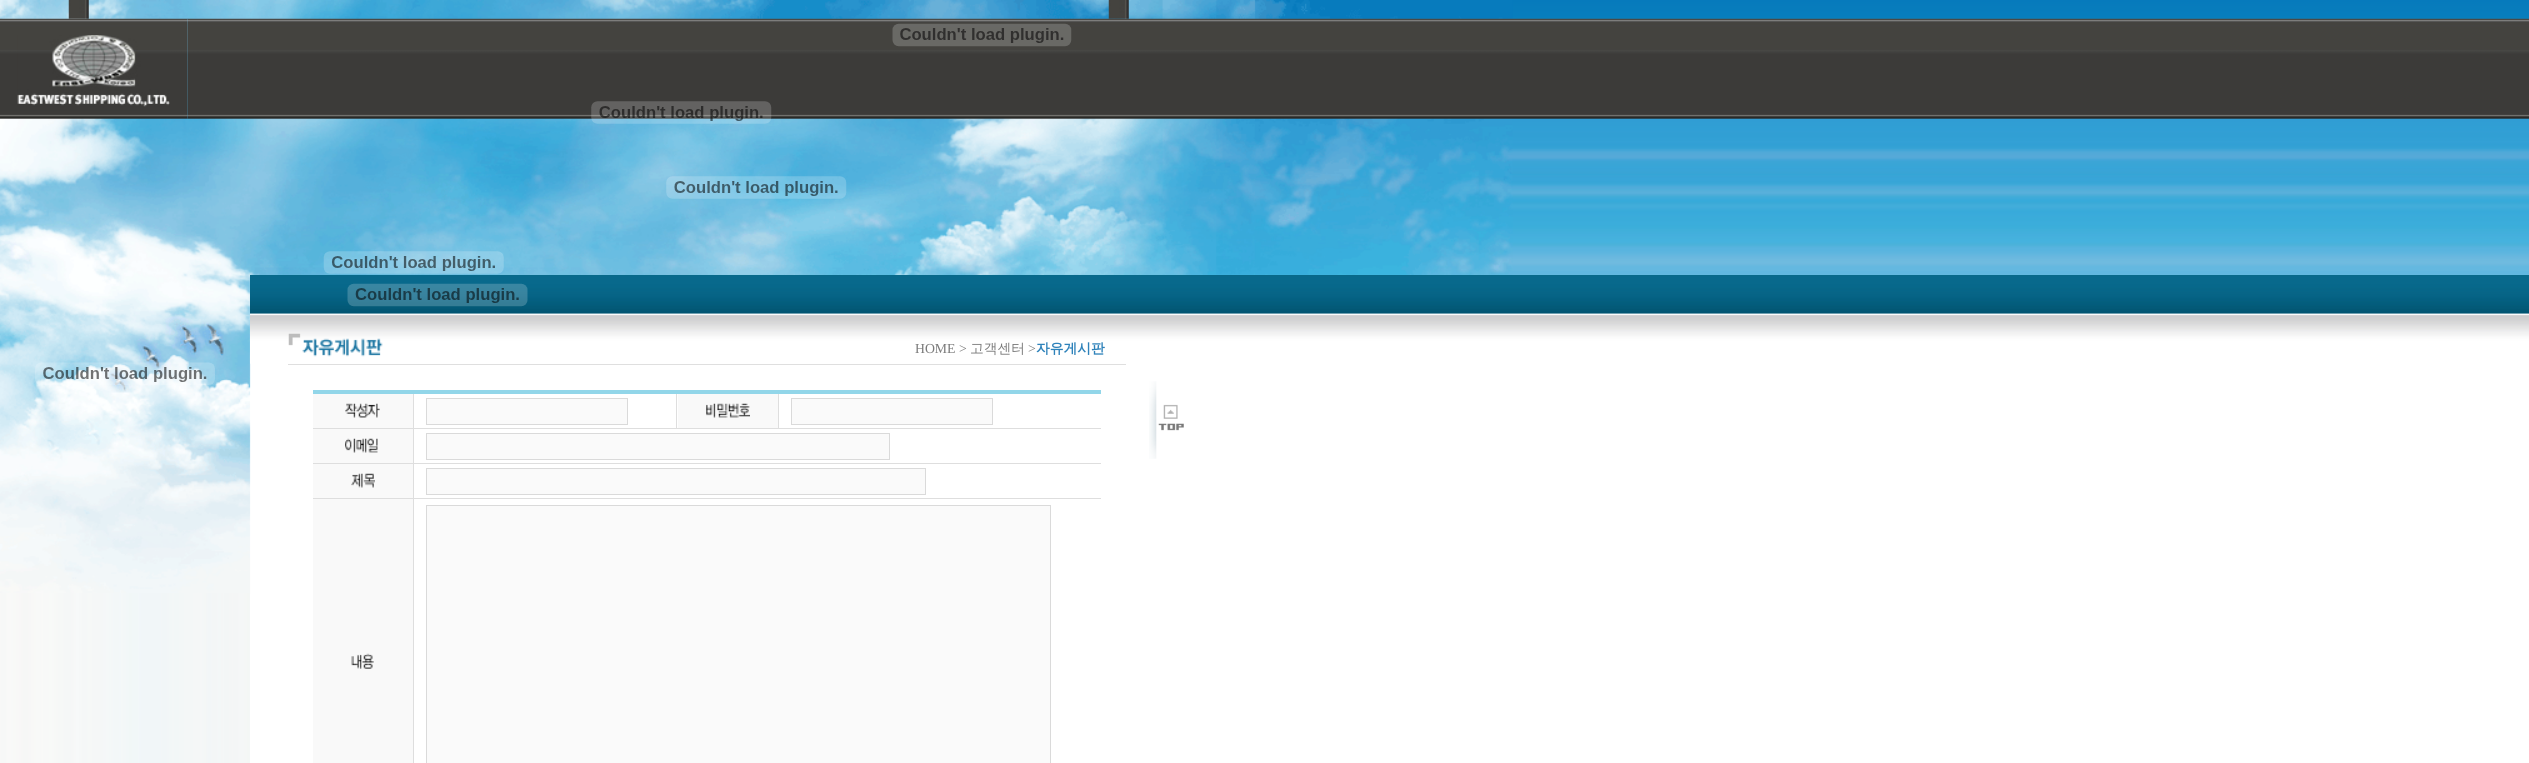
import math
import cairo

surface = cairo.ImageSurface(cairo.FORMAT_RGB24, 2529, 763)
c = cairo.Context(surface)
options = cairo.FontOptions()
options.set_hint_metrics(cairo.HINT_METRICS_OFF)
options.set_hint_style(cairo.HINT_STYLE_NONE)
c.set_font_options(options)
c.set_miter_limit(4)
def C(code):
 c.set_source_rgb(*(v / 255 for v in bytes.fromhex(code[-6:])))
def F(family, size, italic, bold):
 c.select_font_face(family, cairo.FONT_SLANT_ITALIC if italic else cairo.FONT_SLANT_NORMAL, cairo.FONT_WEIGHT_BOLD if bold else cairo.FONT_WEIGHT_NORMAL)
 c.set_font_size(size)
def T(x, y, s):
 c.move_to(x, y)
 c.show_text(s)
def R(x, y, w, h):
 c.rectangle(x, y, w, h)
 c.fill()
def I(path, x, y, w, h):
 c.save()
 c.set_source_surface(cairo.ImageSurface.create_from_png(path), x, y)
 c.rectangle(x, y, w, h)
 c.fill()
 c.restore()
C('ffffff')
c.paint()
I('1.png',250,0,2279,275)
I('2.png',0,0,1513,594)
I('3.png',666,176,181,23)
I('6.png',0,18,188,101)
I('4.png',68,0,21,19)
I('8.png',187,18,2342,101)
I('5.png',1108,0,21,19)
I('7.png',17,35,153,72)
I('9.png',892,23,180,24)
I('10.png',591,101,181,23)
I('11.png',323,251,181,23)
I('12.png',250,275,2279,39)
I('13.png',347,283,181,24)
I('14.png',250,313,2279,51)
I('15.png',288,333,95,24)
F('Liberation Serif',13.75,0,0)
C('7a7a7a')
T(915,353,'HOME >')
F('WenQuanYi Zen Hei Medium',13.75,0,0)
T(970,353,'고객센터')
F('Liberation Serif',13.75,0,0)
T(1028,353,'>')
F('WenQuanYi Zen Hei',13.75,0,1)
C('2e82ba')
T(1036,353,'자유게시판')
C('dfdfdf')
R(288,364,838,1)
C('92d6e9')
R(313,390,788,4)
C('f9f9f9')
R(313,394,100,34)
I('16.png',345,403,35,15)
C('dedede')
R(413,394,1,34)
C('fafafa')
c.rectangle(426.5,398.5,201,26)
c.fill_preserve()
C('dadada')
c.set_line_width(1)
c.stroke()
C('dedede')
R(676,394,1,34)
C('f9f9f9')
R(678,394,100,34)
I('17.png',706,403,44,15)
C('dedede')
R(778,394,1,34)
C('fafafa')
c.rectangle(791.5,398.5,201,26)
c.fill_preserve()
C('dadada')
c.stroke()
C('dedede')
R(313,428,788,1)
C('f9f9f9')
R(313,429,100,34)
I('18.png',345,438,33,15)
C('dedede')
R(413,429,1,34)
C('fafafa')
c.rectangle(426.5,433.5,463,26)
c.fill_preserve()
C('dadada')
c.stroke()
C('dedede')
R(313,463,788,1)
C('f9f9f9')
R(313,464,100,34)
I('19.png',351,473,24,15)
C('dedede')
R(413,464,1,34)
C('fafafa')
c.rectangle(426.5,468.5,499,26)
c.fill_preserve()
C('dadada')
c.stroke()
C('dedede')
R(313,498,788,1)
C('f9f9f9')
R(313,499,100,264)
I('20.png',351,653,23,16)
C('dedede')
R(413,499,1,264)
C('fafafa')
c.rectangle(426.5,505.5,624,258)
c.fill_preserve()
C('dadada')
c.stroke()
I('21.png',35,362,180,23)
I('22.png',0,593,250,170)
I('23.png',1149,381,35,78)
surface.write_to_png('o.png')
